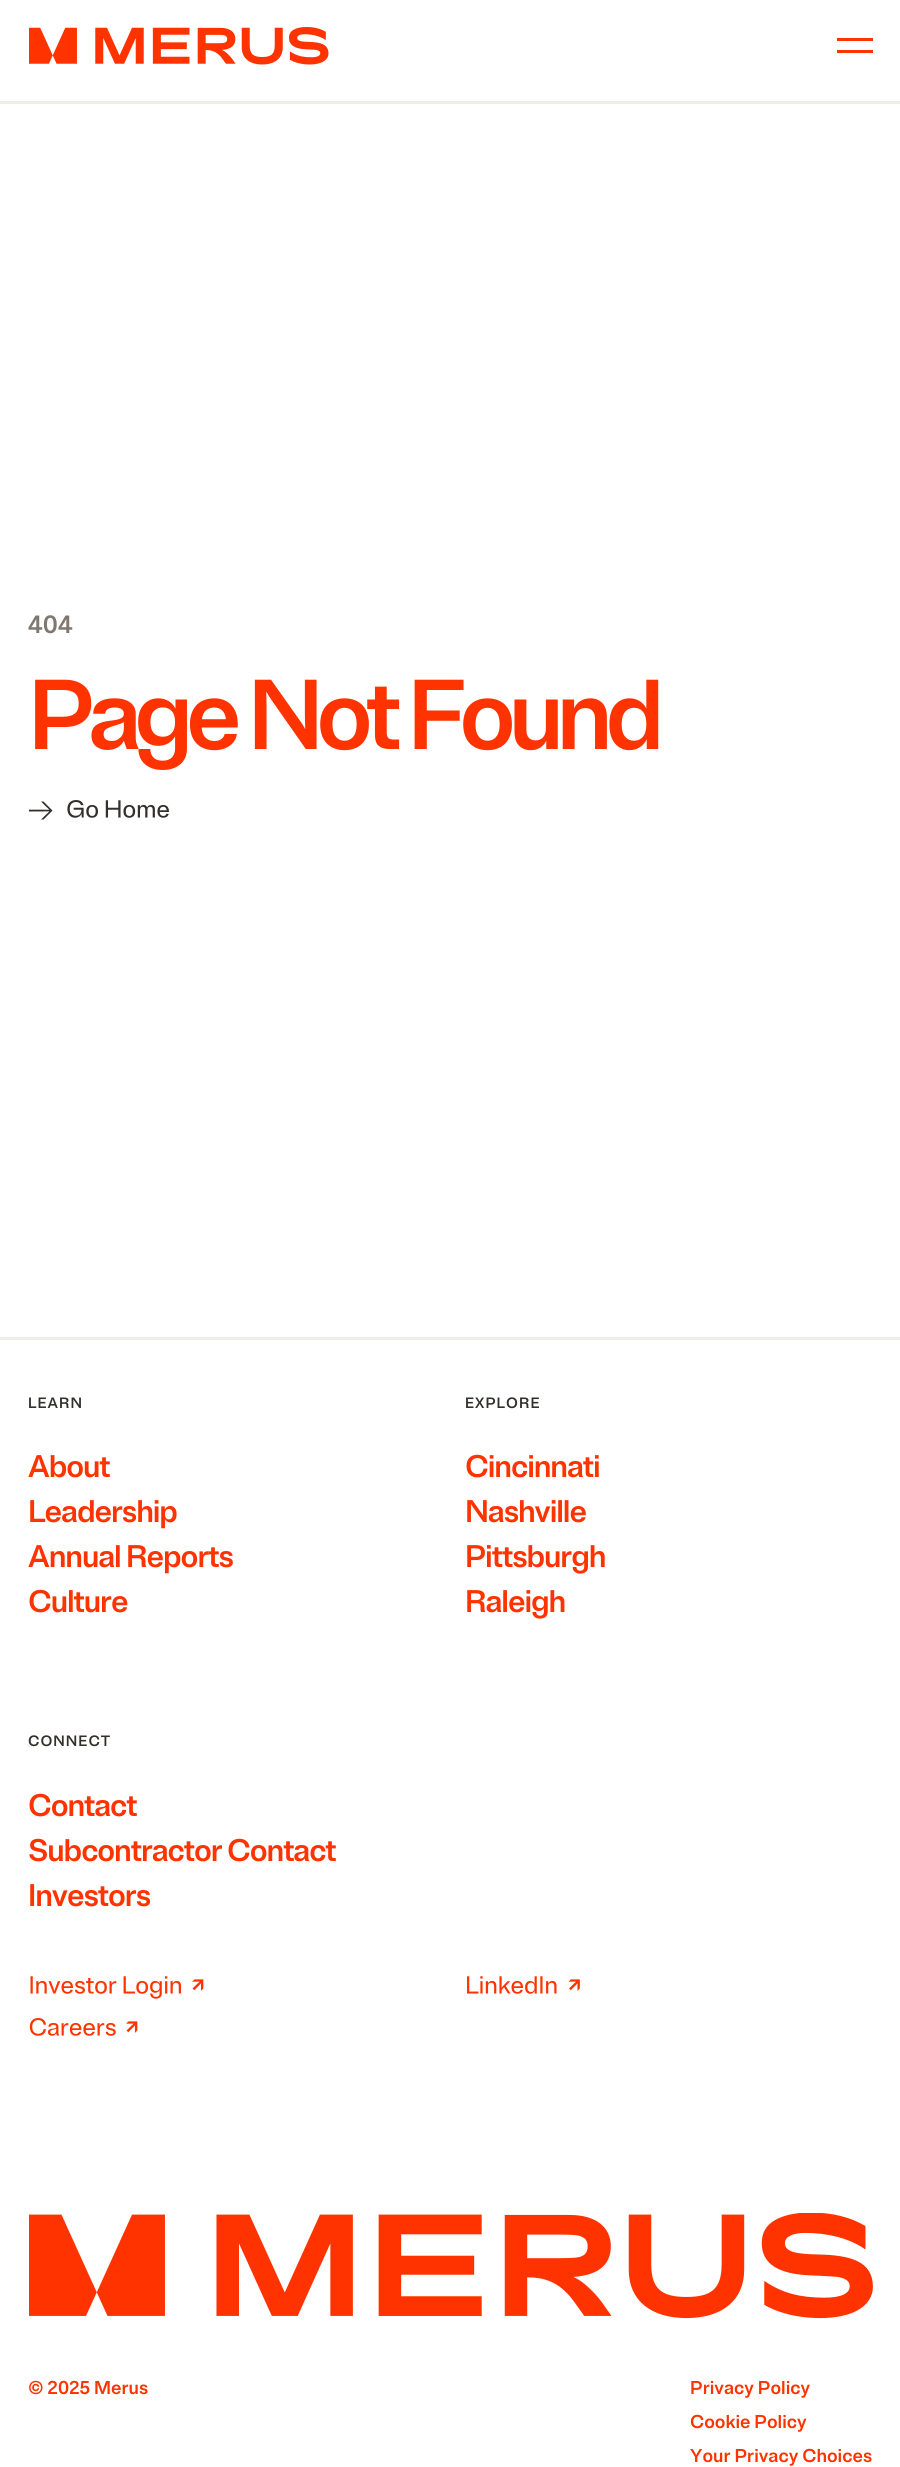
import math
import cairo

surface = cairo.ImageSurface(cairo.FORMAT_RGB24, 900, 2467)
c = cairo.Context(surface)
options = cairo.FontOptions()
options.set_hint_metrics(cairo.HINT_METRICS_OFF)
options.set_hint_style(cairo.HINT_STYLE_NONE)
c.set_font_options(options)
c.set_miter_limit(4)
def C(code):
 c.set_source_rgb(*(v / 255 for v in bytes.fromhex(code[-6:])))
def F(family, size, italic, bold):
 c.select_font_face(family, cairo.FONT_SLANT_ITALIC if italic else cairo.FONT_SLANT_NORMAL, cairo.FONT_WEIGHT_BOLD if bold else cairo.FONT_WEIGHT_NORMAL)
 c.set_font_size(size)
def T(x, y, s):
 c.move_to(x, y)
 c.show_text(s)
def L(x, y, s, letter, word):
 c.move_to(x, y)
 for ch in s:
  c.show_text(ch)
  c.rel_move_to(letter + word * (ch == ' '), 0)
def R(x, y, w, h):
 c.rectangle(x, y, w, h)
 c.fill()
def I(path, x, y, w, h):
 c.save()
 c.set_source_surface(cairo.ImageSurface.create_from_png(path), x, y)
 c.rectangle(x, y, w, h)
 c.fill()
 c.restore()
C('ffffff')
c.paint()
C('f0ede8')
R(0,101,900,3)
I('1.png',29,27,300,38)
C('ff3300')
R(837,38,36,3)
R(837,50,36,3)
F('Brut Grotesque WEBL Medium',25,0,0)
C('807870')
T(28,633,'404')
F('Brut Grotesque WEBL Medium',99,0,0)
C('ff3300')
L(28,749,'Page Not Found',-7.3,0)
I('2.png',29,801,24,19)
I('3.png',67,800,102,18)
C('f0ede8')
R(0,1337,900,3)
F('Brut Grotesque WEBL Medium',15,0,0)
C('33302b')
L(28,1408,'LEARN',1,0)
F('Brut Grotesque WEBL Medium',31.25,0,0)
C('ff3300')
L(28,1477,'About',-1.1,0)
L(28,1522,'Leadership',-1.1,0)
L(28,1567,'Annual Reports',-1.1,0)
L(28,1612,'Culture',-1.1,0)
F('Brut Grotesque WEBL Medium',15,0,0)
C('33302b')
L(465,1408,'EXPLORE',1,0)
F('Brut Grotesque WEBL Medium',31.25,0,0)
C('ff3300')
L(465,1477,'Cincinnati',-1.1,0)
L(465,1522,'Nashville',-1.1,0)
L(465,1567,'Pittsburgh',-1.1,0)
L(465,1612,'Raleigh',-1.1,0)
F('Brut Grotesque WEBL Medium',15,0,0)
C('33302b')
L(28,1746,'CONNECT',1,0)
F('Brut Grotesque WEBL Medium',31.25,0,0)
C('ff3300')
L(28,1816,'Contact',-1.1,0)
L(28,1861,'Subcontractor Contact',-1.1,0)
L(28,1906,'Investors',-1.1,0)
I('4.png',30,1976,151,23)
I('5.png',192,1979,12,12)
I('6.png',467,1976,90,18)
I('7.png',568,1979,12,12)
I('8.png',29,2018,87,18)
I('5.png',126,2021,12,12)
I('9.png',29,2213,844,106)
F('Brut Grotesque WEBL Medium',18.6,0,0)
T(28,2394,'© 2025 Merus')
T(690,2394,'Privacy Policy')
T(690,2428,'Cookie Policy')
T(690,2462,'Your Privacy Choices')
surface.write_to_png('o.png')
